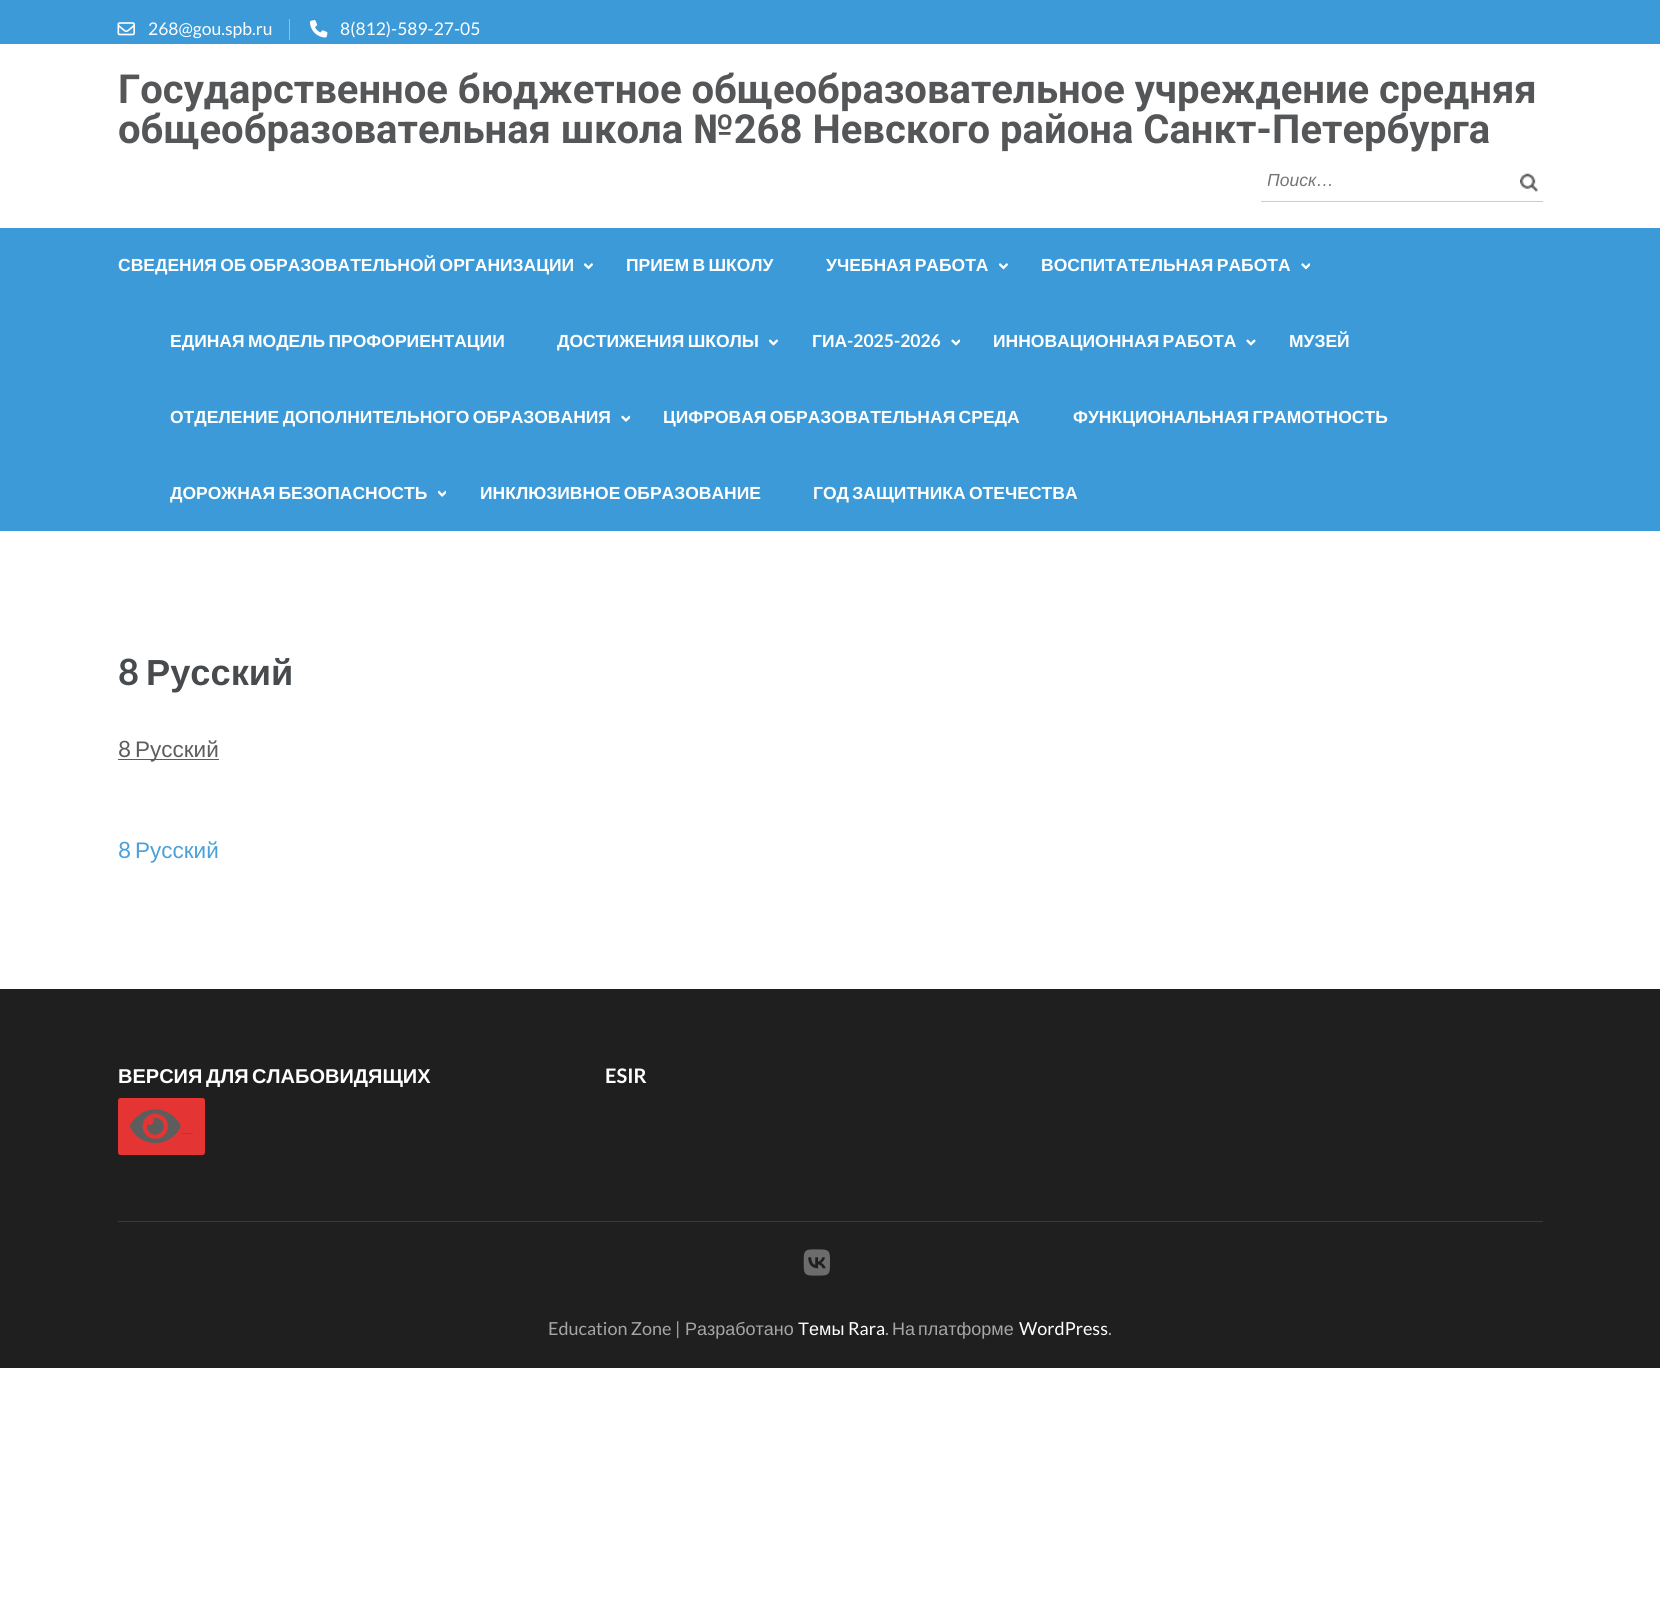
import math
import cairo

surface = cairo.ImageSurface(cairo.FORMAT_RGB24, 1660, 1618)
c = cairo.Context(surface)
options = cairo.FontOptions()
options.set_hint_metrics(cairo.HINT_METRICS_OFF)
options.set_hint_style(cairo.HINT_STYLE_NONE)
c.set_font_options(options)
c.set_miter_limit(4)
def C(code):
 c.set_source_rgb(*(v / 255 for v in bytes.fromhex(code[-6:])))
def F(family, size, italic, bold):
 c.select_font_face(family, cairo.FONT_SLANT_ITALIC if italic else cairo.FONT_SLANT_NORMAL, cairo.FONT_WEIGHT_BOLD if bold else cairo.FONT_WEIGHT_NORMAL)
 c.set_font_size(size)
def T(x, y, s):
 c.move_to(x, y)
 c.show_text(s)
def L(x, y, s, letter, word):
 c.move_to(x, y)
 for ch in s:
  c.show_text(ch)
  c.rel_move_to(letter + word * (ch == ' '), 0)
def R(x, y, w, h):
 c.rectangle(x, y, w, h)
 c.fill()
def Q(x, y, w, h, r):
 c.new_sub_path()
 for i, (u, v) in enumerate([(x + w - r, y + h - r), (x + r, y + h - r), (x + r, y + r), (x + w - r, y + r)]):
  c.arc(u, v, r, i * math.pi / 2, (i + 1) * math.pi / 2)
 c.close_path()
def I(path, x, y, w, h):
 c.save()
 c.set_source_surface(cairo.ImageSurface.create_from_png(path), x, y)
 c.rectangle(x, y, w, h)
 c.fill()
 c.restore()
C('ffffff')
c.paint()
C('3b9ad7')
R(0,0,1660,44)
I('1.png',117,22,18,14)
F('Lato',17.5,0,0)
C('ffffff')
T(148,35,'268@gou.spb.ru')
C('89c2e7')
R(289,19,1,21)
I('2.png',310,20,18,18)
C('ffffff')
T(340,35,'8(812)-589-27-05')
F('Roboto',40,0,1)
C('555658')
T(118,103,'Государственное бюджетное общеобразовательное учреждение средняя')
T(118,143,'общеобразовательная школа №268 Невского района Санкт-Петербурга')
C('cccccc')
R(1261,201,282,1)
c.save()
c.rectangle(1268,170,222,20)
c.clip()
F('Liberation Sans',17.5,1,0)
C('757575')
T(1267,186,'Поиск…')
c.restore()
I('3.png',1520,173,18,19)
C('3b9ad7')
R(0,228,1660,303)
F('Liberation Sans',17.5,0,1)
C('ffffff')
L(118,271,'СВЕДЕНИЯ ОБ ОБРАЗОВАТЕЛЬНОЙ ОРГАНИЗАЦИИ',0,-1.5)
I('4.png',584,263,9,7)
L(626,271,'ПРИЕМ В ШКОЛУ',0,-1.5)
L(826,271,'УЧЕБНАЯ РАБОТА',0,-1.5)
I('5.png',999,263,10,7)
L(1041,271,'ВОСПИТАТЕЛЬНАЯ РАБОТА',0,-1.5)
I('6.png',1301,263,9,7)
L(170,347,'ЕДИНАЯ МОДЕЛЬ ПРОФОРИЕНТАЦИИ',0,-1.5)
L(557,347,'ДОСТИЖЕНИЯ ШКОЛЫ',0,-1.5)
I('7.png',769,339,10,7)
T(812,347,'ГИА')
F('Lato',17.5,0,1)
T(847,347,'-2025-2026')
I('8.png',951,339,9,7)
F('Liberation Sans',17.5,0,1)
L(993,347,'ИННОВАЦИОННАЯ РАБОТА',0,-1.5)
I('9.png',1246,339,10,7)
T(1289,347,'МУЗЕЙ')
L(170,423,'ОТДЕЛЕНИЕ ДОПОЛНИТЕЛЬНОГО ОБРАЗОВАНИЯ',0,-1.5)
I('10.png',621,415,9,7)
L(663,423,'ЦИФРОВАЯ ОБРАЗОВАТЕЛЬНАЯ СРЕДА',0,-1.5)
L(1073,423,'ФУНКЦИОНАЛЬНАЯ ГРАМОТНОСТЬ',0,-1.5)
L(170,499,'ДОРОЖНАЯ БЕЗОПАСНОСТЬ',0,-1.5)
I('11.png',438,490,8,7)
L(480,499,'ИНКЛЮЗИВНОЕ ОБРАЗОВАНИЕ',0,-1.5)
L(813,499,'ГОД ЗАЩИТНИКА ОТЕЧЕСТВА',0,-1.5)
F('Lato',36.25,0,1)
C('474b4e')
T(118,685,'8')
F('Liberation Sans',36.25,0,1)
T(146,685,'Русский')
F('Lato',22.5,0,0)
C('5d5d5d')
T(118,757,'8')
R(118,759,101,1)
F('Liberation Sans',22.5,0,0)
T(135,757,'Русский')
F('Lato',22.5,0,0)
C('4aa0d7')
T(118,858,'8')
F('Liberation Sans',22.5,0,0)
T(135,858,'Русский')
C('1f1f1f')
R(0,989,1660,379)
C('3a3a3a')
R(118,1221,1425,1)
F('Liberation Sans',20,0,1)
C('ffffff')
L(118,1083,'ВЕРСИЯ ДЛЯ СЛАБОВИДЯЩИХ',0,-2)
C('e53434')
Q(118,1098,87,57,2.5)
c.fill()
I('12.png',130,1109,51,35)
C('5d5d5d')
R(181,1133,12,1)
F('Lato',20,0,1)
C('ffffff')
T(605,1083,'ESIR')
I('13.png',803,1249,27,27)
F('Lato',18,0,0)
C('a6a6a6')
T(548,1335,'Education Zone |')
F('Liberation Sans',18,0,0)
T(685,1335,'Разработано')
C('ffffff')
T(798,1335,'Темы')
F('Lato',18,0,0)
T(848,1335,'Rara')
C('a6a6a6')
T(885,1335,'.')
F('Liberation Sans',18,0,0)
L(892,1335,'На платформе',0,-2)
F('Lato',18,0,0)
C('ffffff')
T(1019,1335,'WordPress')
C('a6a6a6')
T(1108,1335,'.')
surface.write_to_png('o.png')
